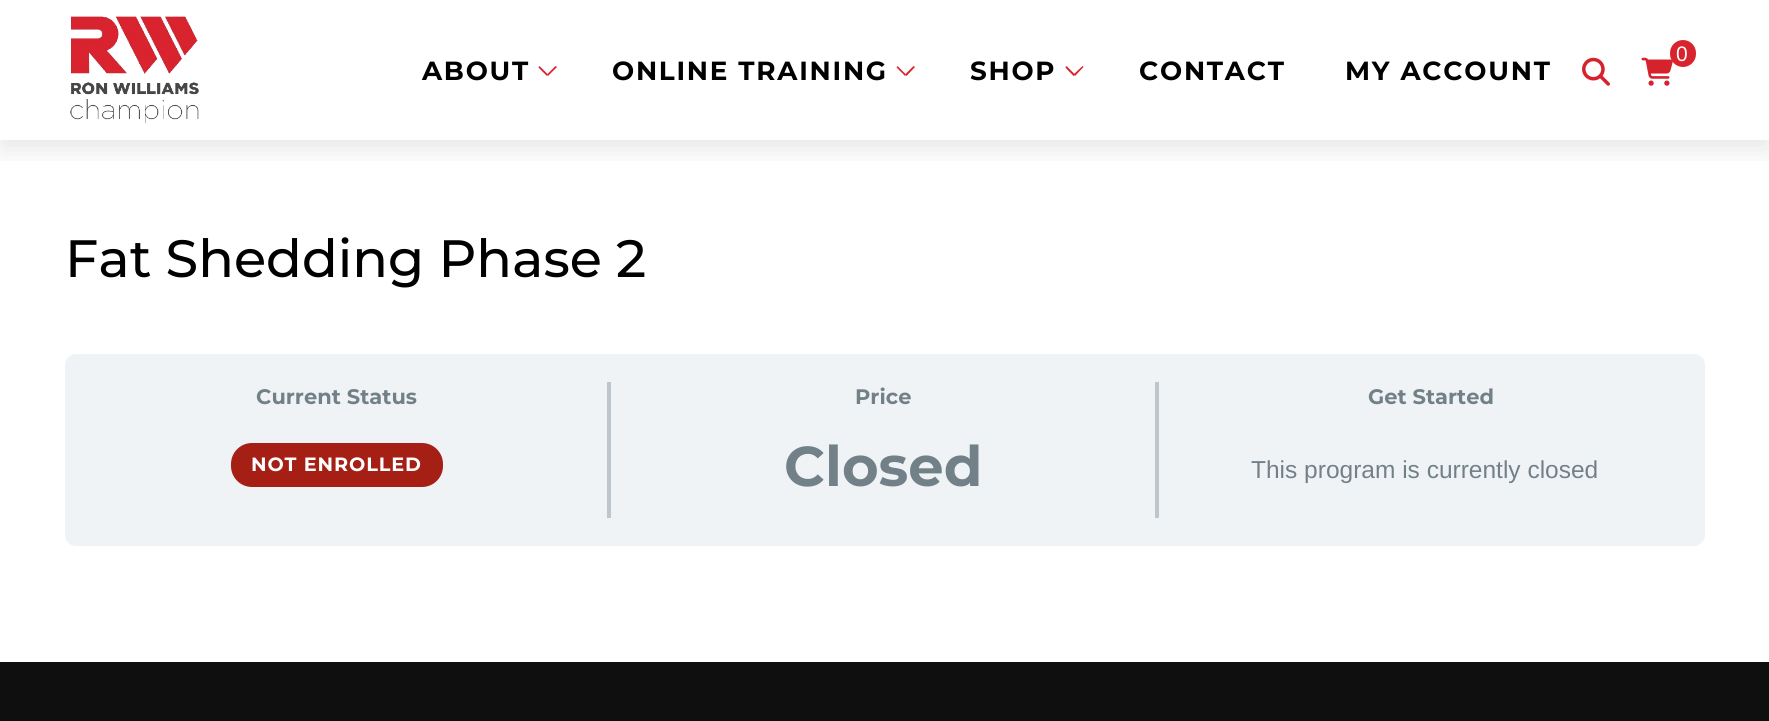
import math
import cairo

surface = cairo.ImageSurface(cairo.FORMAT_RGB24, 1769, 721)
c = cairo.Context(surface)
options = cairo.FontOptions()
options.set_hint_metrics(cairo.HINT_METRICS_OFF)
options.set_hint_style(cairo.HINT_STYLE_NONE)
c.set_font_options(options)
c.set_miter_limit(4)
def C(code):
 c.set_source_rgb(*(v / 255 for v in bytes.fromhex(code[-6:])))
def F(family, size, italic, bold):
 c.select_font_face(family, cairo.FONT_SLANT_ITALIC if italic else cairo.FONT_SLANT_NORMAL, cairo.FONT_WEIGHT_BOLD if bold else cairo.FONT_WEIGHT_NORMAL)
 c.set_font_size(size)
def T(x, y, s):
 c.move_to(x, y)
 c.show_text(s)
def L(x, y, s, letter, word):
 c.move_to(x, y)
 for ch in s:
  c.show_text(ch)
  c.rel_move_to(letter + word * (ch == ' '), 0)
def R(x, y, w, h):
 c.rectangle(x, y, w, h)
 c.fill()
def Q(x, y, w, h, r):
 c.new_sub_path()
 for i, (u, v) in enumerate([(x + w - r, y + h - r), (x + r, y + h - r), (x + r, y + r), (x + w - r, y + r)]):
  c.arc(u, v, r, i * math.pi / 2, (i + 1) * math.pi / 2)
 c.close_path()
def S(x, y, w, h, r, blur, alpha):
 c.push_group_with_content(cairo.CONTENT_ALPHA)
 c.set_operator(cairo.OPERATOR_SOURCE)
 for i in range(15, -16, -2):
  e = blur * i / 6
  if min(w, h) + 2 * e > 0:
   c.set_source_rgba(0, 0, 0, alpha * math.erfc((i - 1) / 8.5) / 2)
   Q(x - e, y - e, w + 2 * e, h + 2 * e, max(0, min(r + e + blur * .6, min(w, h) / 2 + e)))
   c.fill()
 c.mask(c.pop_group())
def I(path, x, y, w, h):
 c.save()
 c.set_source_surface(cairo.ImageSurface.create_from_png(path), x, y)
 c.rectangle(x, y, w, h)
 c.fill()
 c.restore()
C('ffffff')
c.paint()
c.save()
c.rectangle(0,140,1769,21)
c.clip()
C('000000')
S(0,9,1769,140,0,14,.1)
c.restore()
I('1.png',70,16,129,108)
I('3.png',1641,57,32,29)
C('d9232e')
Q(1670,40,26,27,13)
c.fill()
F('Liberation Sans',21,0,0)
C('ffffff')
T(1676,61,'0')
I('2.png',1582,57,28,29)
F('Montserrat',26.25,0,1)
C('000000')
L(422,80,'ABOUT',1.75,0)
C('d9232e')
c.new_path()
c.move_to(540,66.5)
c.line_to(548,74.5)
c.line_to(547,76)
c.curve_to(545.5,74.5,538.5,68,538.5,67)
c.curve_to(538.5,66.5,539.5,66,540,66.5)
c.close_path()
c.fill()
c.new_path()
c.move_to(547,74.5)
c.line_to(555.5,66)
c.line_to(557,67)
c.line_to(548,76)
c.close_path()
c.fill()
C('000000')
L(612,80,'ONLINE TRAINING',1.75,0)
C('d9232e')
c.new_path()
c.move_to(898,66.5)
c.line_to(906,74.5)
c.line_to(905,76)
c.curve_to(904,74.5,896.5,68,896.5,67)
c.curve_to(897,66.5,897.5,66,898,66.5)
c.close_path()
c.fill()
c.new_path()
c.move_to(905,74.5)
c.line_to(913.5,66)
c.line_to(915,67)
c.line_to(906.5,76)
c.close_path()
c.fill()
C('000000')
L(970,80,'SHOP',1.75,0)
C('d9232e')
c.new_path()
c.move_to(1067,66.5)
c.line_to(1075,74.5)
c.line_to(1073.5,76)
c.curve_to(1072.5,74.5,1065,68,1065.5,67)
c.curve_to(1065.5,66.5,1066.5,66,1067,66.5)
c.close_path()
c.fill()
c.new_path()
c.move_to(1073.5,74.5)
c.line_to(1082.5,66)
c.line_to(1083.5,67)
c.line_to(1075,76)
c.close_path()
c.fill()
C('000000')
L(1139,80,'CONTACT',1.75,0)
L(1345,80,'MY ACCOUNT',1.75,0)
F('Montserrat Medium',52.5,0,0)
T(65,277,'Fat Shedding Phase 2')
C('f0f3f6')
Q(65,354,1640,192,11)
c.fill()
C('bec5cb')
R(607,382,4,136)
F('Montserrat',21,0,1)
C('728188')
T(256,404,'Current Status')
C('a51f15')
Q(231,443,212,44,21)
c.fill()
F('Montserrat',19.25,0,1)
C('ffffff')
L(251,471,'NOT ENROLLED',.9,0)
C('bec5cb')
R(1155,382,4,136)
F('Montserrat',21,0,1)
C('728188')
T(855,404,'Price')
F('Montserrat',56,0,1)
T(784,486,'Closed')
F('Montserrat',21,0,1)
T(1368,404,'Get Started')
F('Liberation Sans',24.5,0,0)
T(1251,478,'This program is currently closed')
C('0f0f0f')
R(0,662,1769,59)
surface.write_to_png('o.png')
